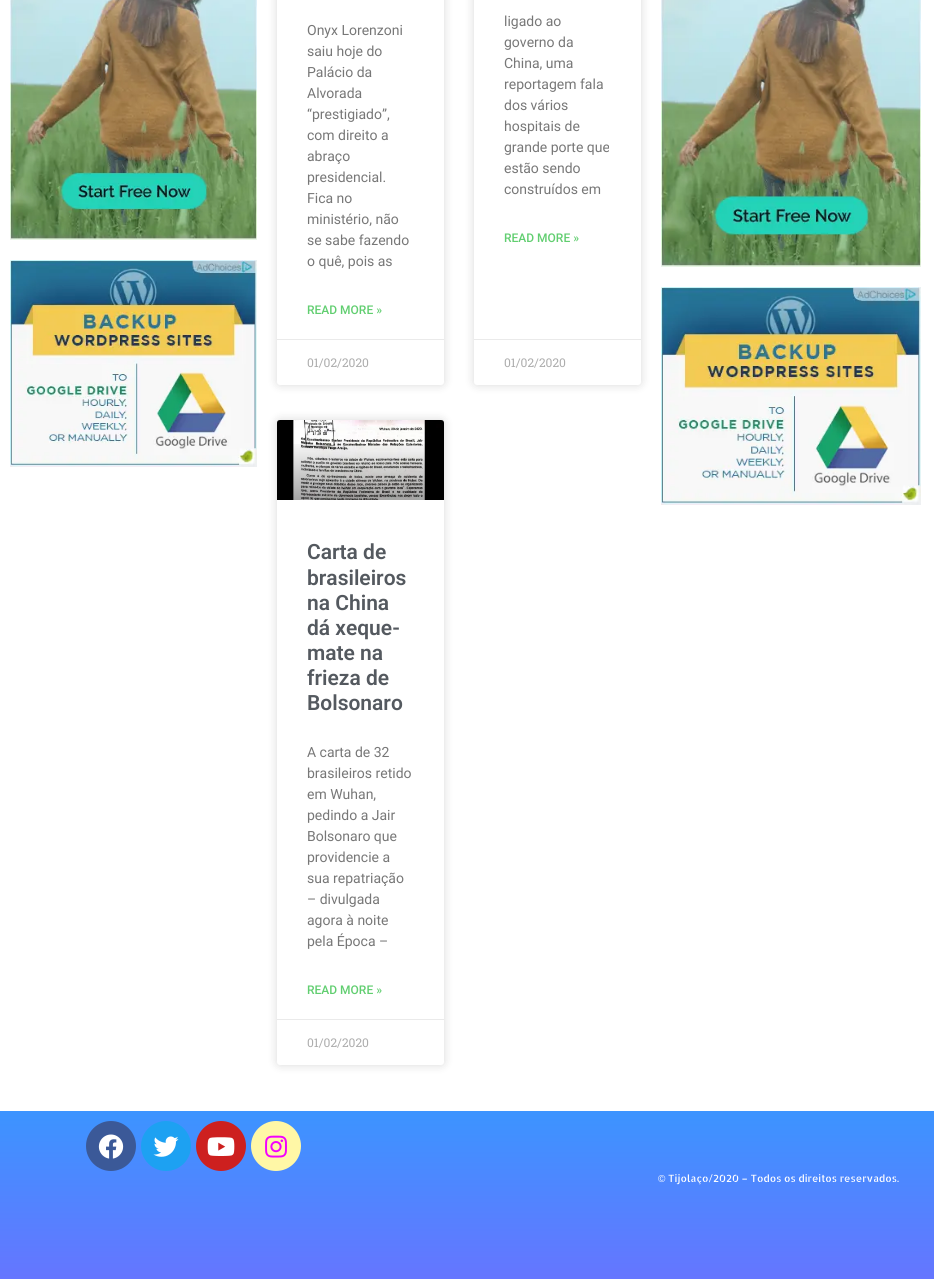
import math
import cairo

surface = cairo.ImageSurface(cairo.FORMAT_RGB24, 934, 1279)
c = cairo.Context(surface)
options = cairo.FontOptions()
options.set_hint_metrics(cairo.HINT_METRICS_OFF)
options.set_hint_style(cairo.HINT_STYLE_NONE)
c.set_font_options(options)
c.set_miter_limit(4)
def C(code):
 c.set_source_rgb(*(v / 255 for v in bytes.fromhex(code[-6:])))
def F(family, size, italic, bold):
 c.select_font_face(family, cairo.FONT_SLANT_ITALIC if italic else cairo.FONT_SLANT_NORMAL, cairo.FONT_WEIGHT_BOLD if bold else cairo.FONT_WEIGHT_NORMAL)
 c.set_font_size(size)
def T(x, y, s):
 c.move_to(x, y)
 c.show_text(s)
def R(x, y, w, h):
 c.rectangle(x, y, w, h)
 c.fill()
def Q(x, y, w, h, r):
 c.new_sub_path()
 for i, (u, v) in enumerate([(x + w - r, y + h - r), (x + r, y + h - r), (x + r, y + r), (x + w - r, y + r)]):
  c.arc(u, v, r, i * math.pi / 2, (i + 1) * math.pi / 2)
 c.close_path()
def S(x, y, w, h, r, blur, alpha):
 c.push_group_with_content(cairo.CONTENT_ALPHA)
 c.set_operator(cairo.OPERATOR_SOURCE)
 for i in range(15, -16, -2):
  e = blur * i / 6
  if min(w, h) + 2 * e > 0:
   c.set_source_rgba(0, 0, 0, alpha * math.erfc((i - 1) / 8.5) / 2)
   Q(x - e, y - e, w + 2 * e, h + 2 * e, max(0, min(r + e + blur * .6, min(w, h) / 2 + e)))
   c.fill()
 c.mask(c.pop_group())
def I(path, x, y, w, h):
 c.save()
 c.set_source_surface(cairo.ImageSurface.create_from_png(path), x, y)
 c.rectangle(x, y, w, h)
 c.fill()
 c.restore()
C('ffffff')
c.paint()
I('1.png',10,0,247,240)
I('2.png',10,260,247,207)
C('000000')
S(277,-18,167,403,3,5,.15)
C('ffffff')
Q(277,-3,167,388,3)
c.fill()
F('Roboto',14,0,0)
C('777777')
T(307,35,'Onyx Lorenzoni')
T(307,56,'saiu hoje do')
T(307,77,'Palácio da')
T(307,98,'Alvorada')
T(307,119,'“prestigiado”,')
T(307,140,'com direito a')
T(307,161,'abraço')
T(307,182,'presidencial.')
T(307,203,'Fica no')
T(307,224,'ministério, não')
T(307,245,'se sabe fazendo')
T(307,266,'o quê, pois as')
F('Roboto Medium',12,0,0)
C('61ce70')
T(307,314,'READ MORE »')
C('eaeaea')
R(277,339,167,1)
F('Roboto Slab',12,0,0)
C('adadad')
T(307,367,'01/02/2020')
C('000000')
S(474,-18,167,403,3,5,.15)
C('ffffff')
Q(474,-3,167,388,3)
c.fill()
F('Roboto',14,0,0)
C('777777')
T(504,26,'ligado ao')
T(504,47,'governo da')
T(504,68,'China, uma')
T(504,89,'reportagem fala')
T(504,110,'dos vários')
T(504,131,'hospitais de')
T(504,152,'grande porte que')
T(504,173,'estão sendo')
T(504,194,'construídos em')
F('Roboto Medium',12,0,0)
C('61ce70')
T(504,242,'READ MORE »')
C('eaeaea')
R(474,339,167,1)
F('Roboto Slab',12,0,0)
C('adadad')
T(504,367,'01/02/2020')
C('000000')
S(277,420,167,645,3,5,.15)
C('ffffff')
Q(277,420,167,645,3)
c.fill()
I('3.png',277,420,167,80)
gradient = cairo.LinearGradient(361,500,361,420)
gradient.add_color_stop_rgba(0,0,0,0,.35)
gradient.add_color_stop_rgba(.75,0,0,0,0)
c.set_source(gradient)
R(293,444,132,56)
F('Roboto SemiBold',21,0,0)
C('54595f')
T(307,559,'Carta de')
T(307,585,'brasileiros')
T(307,610,'na China')
T(307,635,'dá xeque-')
T(307,660,'mate na')
T(307,685,'frieza de')
T(307,710,'Bolsonaro')
F('Roboto',14,0,0)
C('777777')
T(307,757,'A carta de 32')
T(307,778,'brasileiros retido')
T(307,799,'em Wuhan,')
T(307,820,'pedindo a Jair')
T(307,841,'Bolsonaro que')
T(307,862,'providencie a')
T(307,883,'sua repatriação')
T(307,904,'– divulgada')
T(307,925,'agora à noite')
T(307,946,'pela Época –')
F('Roboto Medium',12,0,0)
C('61ce70')
T(307,994,'READ MORE »')
C('eaeaea')
R(277,1019,167,1)
F('Roboto Slab',12,0,0)
C('adadad')
T(307,1047,'01/02/2020')
I('4.png',661,0,260,267)
I('5.png',661,287,260,218)
gradient = cairo.LinearGradient(156,1111,156,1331)
gradient.add_color_stop_rgba(0,0.235,0.58,1,1)
gradient.add_color_stop_rgba(1,0.447,0.424,1,1)
c.set_source(gradient)
R(0,1111,311,168)
C('3b5998')
c.arc(111,1146,25,0,2 * math.pi)
c.fill()
I('6.png',98,1134,26,25)
C('1da1f2')
c.arc(166,1146,25,0,2 * math.pi)
c.fill()
I('7.png',153,1136,26,21)
C('cd201f')
c.arc(221,1146,25,0,2 * math.pi)
c.fill()
I('8.png',207,1137,28,19)
C('fff7a6')
c.arc(276,1146,25,0,2 * math.pi)
c.fill()
I('9.png',265,1135,22,23)
gradient = cairo.LinearGradient(467,1111,467,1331)
gradient.add_color_stop_rgba(0,0.235,0.58,1,1)
gradient.add_color_stop_rgba(1,0.447,0.424,1,1)
c.set_source(gradient)
R(311,1111,312,168)
gradient = cairo.LinearGradient(779,1111,779,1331)
gradient.add_color_stop_rgba(0,0.235,0.58,1,1)
gradient.add_color_stop_rgba(1,0.447,0.424,1,1)
c.set_source(gradient)
R(623,1111,311,168)
F('Liberation Sans',10,0,0)
C('ffffff')
T(658,1182,'©')
F('Allerta Stencil',10,0,0)
T(668,1182,'Tijolaço/2020 – Todos os direitos reservados.')
surface.write_to_png('o.png')
